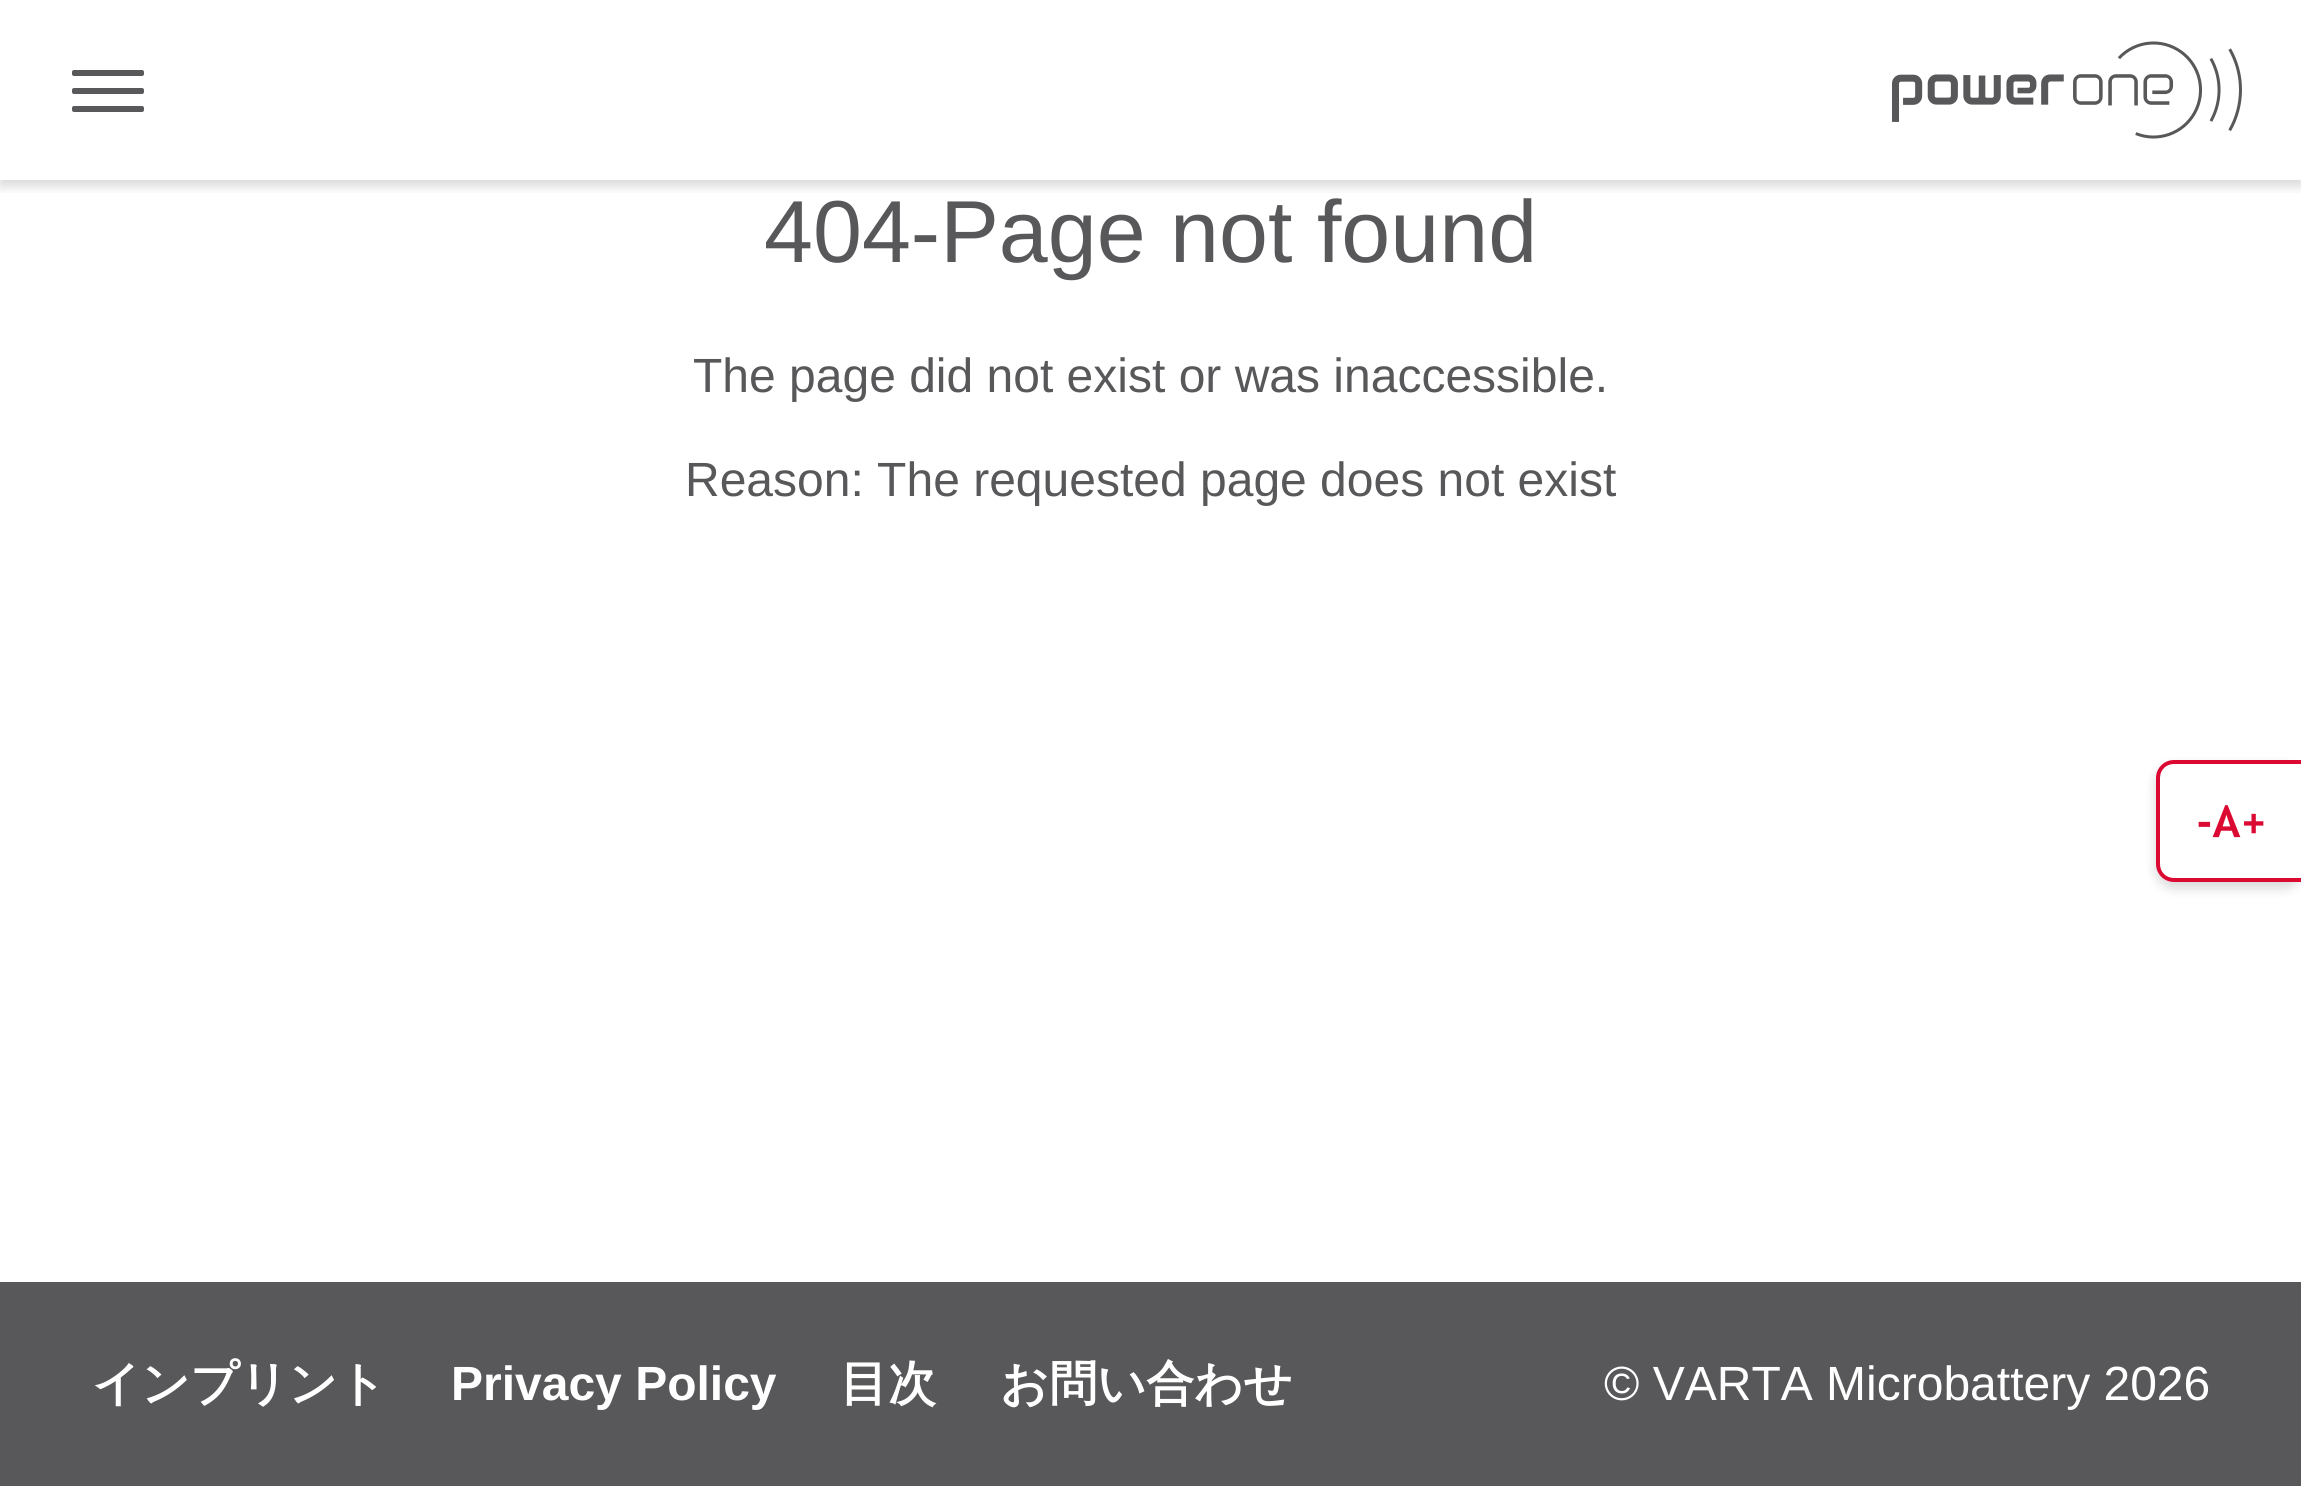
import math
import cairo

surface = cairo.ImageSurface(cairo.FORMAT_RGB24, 2301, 1486)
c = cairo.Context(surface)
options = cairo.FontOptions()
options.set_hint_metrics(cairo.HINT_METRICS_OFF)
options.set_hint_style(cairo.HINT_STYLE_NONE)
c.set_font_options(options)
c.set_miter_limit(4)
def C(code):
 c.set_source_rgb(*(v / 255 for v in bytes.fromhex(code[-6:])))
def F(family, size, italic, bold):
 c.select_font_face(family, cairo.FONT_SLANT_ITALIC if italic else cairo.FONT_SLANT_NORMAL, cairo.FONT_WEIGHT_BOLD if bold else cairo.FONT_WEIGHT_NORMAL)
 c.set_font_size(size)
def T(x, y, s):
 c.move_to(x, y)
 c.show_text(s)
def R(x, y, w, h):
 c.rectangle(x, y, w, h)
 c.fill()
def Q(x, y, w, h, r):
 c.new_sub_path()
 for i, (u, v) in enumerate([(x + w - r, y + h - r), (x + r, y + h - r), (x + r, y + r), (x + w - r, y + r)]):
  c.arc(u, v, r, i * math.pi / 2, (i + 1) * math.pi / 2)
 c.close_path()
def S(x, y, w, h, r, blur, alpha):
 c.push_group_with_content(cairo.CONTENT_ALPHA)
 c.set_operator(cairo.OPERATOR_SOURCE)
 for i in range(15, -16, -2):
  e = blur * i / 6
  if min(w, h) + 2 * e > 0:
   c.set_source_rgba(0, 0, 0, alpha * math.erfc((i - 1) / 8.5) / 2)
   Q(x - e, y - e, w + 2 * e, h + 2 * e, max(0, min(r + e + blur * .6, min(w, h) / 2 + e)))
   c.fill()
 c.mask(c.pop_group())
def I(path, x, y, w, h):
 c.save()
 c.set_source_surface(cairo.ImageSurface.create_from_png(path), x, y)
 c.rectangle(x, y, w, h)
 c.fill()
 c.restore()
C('ffffff')
c.paint()
c.save()
c.rectangle(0,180,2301,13)
c.clip()
C('000000')
S(0,6,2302,180,0,6,.16)
c.restore()
C('58585a')
Q(72,70,72,6,2)
c.fill()
Q(72,88,72,6,2)
c.fill()
Q(72,106,72,6,2)
c.fill()
I('1.png',1892,41,350,98)
F('Liberation Sans',88,0,0)
T(764,262,'404-Page not found')
F('Liberation Sans',48,0,0)
T(693,392,'The page did not exist or was inaccessible.')
T(685,496,'Reason: The requested page does not exist')
C('000000')
S(2156,766,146,122,18,6,.16)
C('ffffff')
c.new_path()
c.move_to(2174,760)
c.line_to(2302,760)
c.line_to(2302,882)
c.line_to(2174,882)
c.curve_to(2164,882,2156,874,2156,864)
c.line_to(2156,778)
c.curve_to(2156,768,2164,760,2174,760)
c.close_path()
c.fill()
C('db0a33')
c.set_fill_rule(cairo.FILL_RULE_EVEN_ODD)
c.new_path()
c.move_to(2174,760)
c.line_to(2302,760)
c.line_to(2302,882)
c.line_to(2174,882)
c.curve_to(2164,882,2156,874,2156,864)
c.line_to(2156,778)
c.curve_to(2156,768,2164,760,2174,760)
c.close_path()
c.move_to(2174,764)
c.line_to(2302,764)
c.line_to(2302,878)
c.line_to(2174,878)
c.curve_to(2166,878,2160,872,2160,864)
c.line_to(2160,778)
c.curve_to(2160,770,2166,764,2174,764)
c.close_path()
c.fill()
I('2.png',2198,805,66,33)
C('58585a')
R(0,1282,2301,204)
F('WenQuanYi Zen Hei',48,0,1)
C('ffffff')
T(92,1400,'インプリント')
F('Liberation Sans',48,0,1)
T(451,1400,'Privacy Policy')
F('WenQuanYi Zen Hei',48,0,1)
T(840,1400,'目次')
T(1000,1400,'お問い合わせ')
F('Liberation Sans',48,0,0)
T(1604,1400,'© VARTA Microbattery 2026')
surface.write_to_png('o.png')
